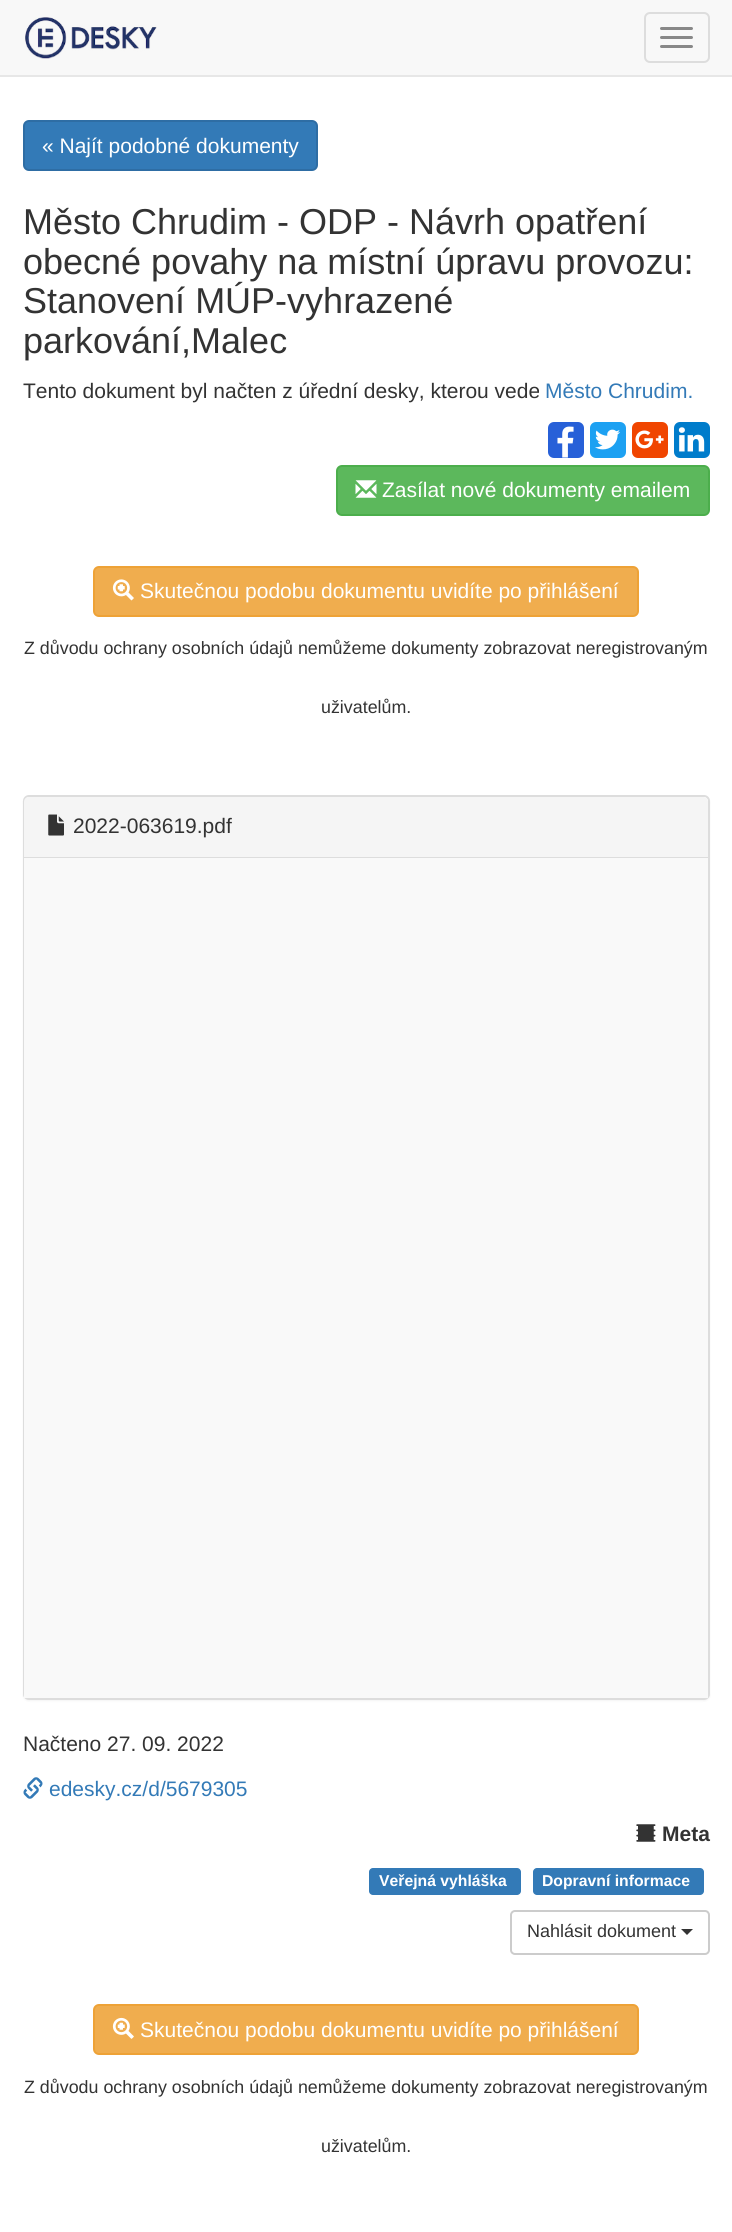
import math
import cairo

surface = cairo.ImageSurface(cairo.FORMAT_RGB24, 732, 2232)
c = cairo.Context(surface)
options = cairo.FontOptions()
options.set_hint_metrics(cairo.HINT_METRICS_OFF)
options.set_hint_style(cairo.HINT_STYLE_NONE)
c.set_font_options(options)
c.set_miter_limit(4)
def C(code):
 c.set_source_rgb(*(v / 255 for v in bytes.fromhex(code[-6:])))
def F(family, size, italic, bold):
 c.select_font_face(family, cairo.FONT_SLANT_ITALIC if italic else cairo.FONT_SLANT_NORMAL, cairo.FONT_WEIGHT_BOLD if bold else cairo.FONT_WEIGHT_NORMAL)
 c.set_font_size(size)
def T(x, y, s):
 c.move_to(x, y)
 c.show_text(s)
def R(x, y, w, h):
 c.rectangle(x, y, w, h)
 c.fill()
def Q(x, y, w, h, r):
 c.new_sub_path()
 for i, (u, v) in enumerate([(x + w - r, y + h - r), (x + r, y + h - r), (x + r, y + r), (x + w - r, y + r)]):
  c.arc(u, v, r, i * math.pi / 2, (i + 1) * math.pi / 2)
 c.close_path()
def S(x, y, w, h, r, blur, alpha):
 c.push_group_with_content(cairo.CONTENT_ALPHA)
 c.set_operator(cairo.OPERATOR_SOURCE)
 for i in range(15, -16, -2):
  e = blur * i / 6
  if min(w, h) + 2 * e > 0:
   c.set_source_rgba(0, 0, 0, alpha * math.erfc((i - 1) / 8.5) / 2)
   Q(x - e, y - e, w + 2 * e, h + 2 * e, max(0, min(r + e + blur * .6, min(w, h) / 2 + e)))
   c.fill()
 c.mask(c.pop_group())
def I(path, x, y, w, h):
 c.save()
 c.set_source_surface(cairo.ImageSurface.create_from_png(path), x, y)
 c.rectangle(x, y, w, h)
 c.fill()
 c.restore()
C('ffffff')
c.paint()
C('f8f8f8')
R(0,0,732,75)
C('e7e7e7')
R(0,75,732,2)
I('1.png',25,17,132,42)
Q(645,13,64,49,5)
C('dddddd')
c.stroke()
C('888888')
Q(660,27,33,3,1.5)
c.fill()
Q(660,36,33,3,1.5)
c.fill()
Q(660,45,33,3,1.5)
c.fill()
C('337ab7')
Q(24,121,293,49,5)
c.fill_preserve()
C('2e6da4')
c.stroke()
F('Liberation Sans',21,0,0)
C('ffffff')
T(42,153,'« Najít podobné dokumenty')
F('Liberation Sans',36,0,0)
C('333333')
T(23,234,'Město Chrudim - ODP - Návrh opatření')
T(23,274,'obecné povahy na místní úpravu provozu:')
T(23,313,'Stanovení MÚP-vyhrazené')
T(23,353,'parkování,Malec')
F('Liberation Sans',21,0,0)
T(23,398,'Tento dokument byl načten z úřední desky, kterou vede')
C('337ab7')
T(545,398,'Město Chrudim.')
I('2.png',548,422,36,36)
I('3.png',590,422,36,36)
I('4.png',632,422,36,36)
I('5.png',674,422,36,36)
C('5cb85c')
Q(337,466,372,49,5)
c.fill_preserve()
C('4cae4c')
c.stroke()
I('6.png',355,480,22,18)
C('ffffff')
T(382,497,'Zasílat nové dokumenty emailem')
C('f0ad4e')
Q(94,567,544,49,5)
c.fill_preserve()
C('eea236')
c.stroke()
I('7.png',112,579,22,22)
C('ffffff')
T(140,598,'Skutečnou podobu dokumentu uvidíte po přihlášení')
F('Liberation Sans',17.85,0,0)
C('333333')
T(24,654,'Z důvodu ochrany osobních údajů nemůžeme dokumenty zobrazovat neregistrovaným')
T(321,713,'uživatelům.')
C('000000')
S(23,797,687,904,6,1,.05)
C('ffffff')
Q(24,796,685,903,5)
c.fill_preserve()
C('dddddd')
c.stroke()
C('f5f5f5')
c.new_path()
c.move_to(29,797)
c.line_to(703,797)
c.curve_to(706,797,708,799,708,802)
c.line_to(708,858)
c.line_to(24,858)
c.line_to(24,802)
c.curve_to(24,799,26,797,29,797)
c.close_path()
c.fill()
C('dddddd')
R(24,857,684,1)
I('8.png',48,814,16,22)
F('Liberation Sans',21,0,0)
C('333333')
T(73,833,'2022-063619.pdf')
C('f9f9f9')
R(24,858,684,840)
C('333333')
T(23,1751,'Načteno 27. 09. 2022')
I('9.png',23,1777,20,22)
C('337ab7')
T(49,1796,'edesky.cz/d/5679305')
I('10.png',636,1824,20,18)
F('Liberation Sans',21,0,1)
C('333333')
T(662,1841,'Meta')
C('337ab7')
Q(369,1868,152,27,4)
c.fill()
F('Liberation Sans',15.75,0,1)
C('ffffff')
T(379,1886,'Veřejná vyhláška')
C('337ab7')
Q(533,1868,171,27,4)
c.fill()
C('ffffff')
T(542,1886,'Dopravní informace')
Q(511,1911,198,43,4)
C('cccccc')
c.stroke()
F('Liberation Sans',18,0,0)
C('333333')
T(527,1937,'Nahlásit dokument')
c.new_path()
c.move_to(681,1929)
c.line_to(693,1929)
c.line_to(687,1935)
c.close_path()
c.fill()
C('f0ad4e')
Q(94,2005,544,49,5)
c.fill_preserve()
C('eea236')
c.stroke()
I('11.png',112,2017,22,22)
F('Liberation Sans',21,0,0)
C('ffffff')
T(140,2037,'Skutečnou podobu dokumentu uvidíte po přihlášení')
F('Liberation Sans',17.85,0,0)
C('333333')
T(24,2093,'Z důvodu ochrany osobních údajů nemůžeme dokumenty zobrazovat neregistrovaným')
T(321,2152,'uživatelům.')
surface.write_to_png('o.png')
